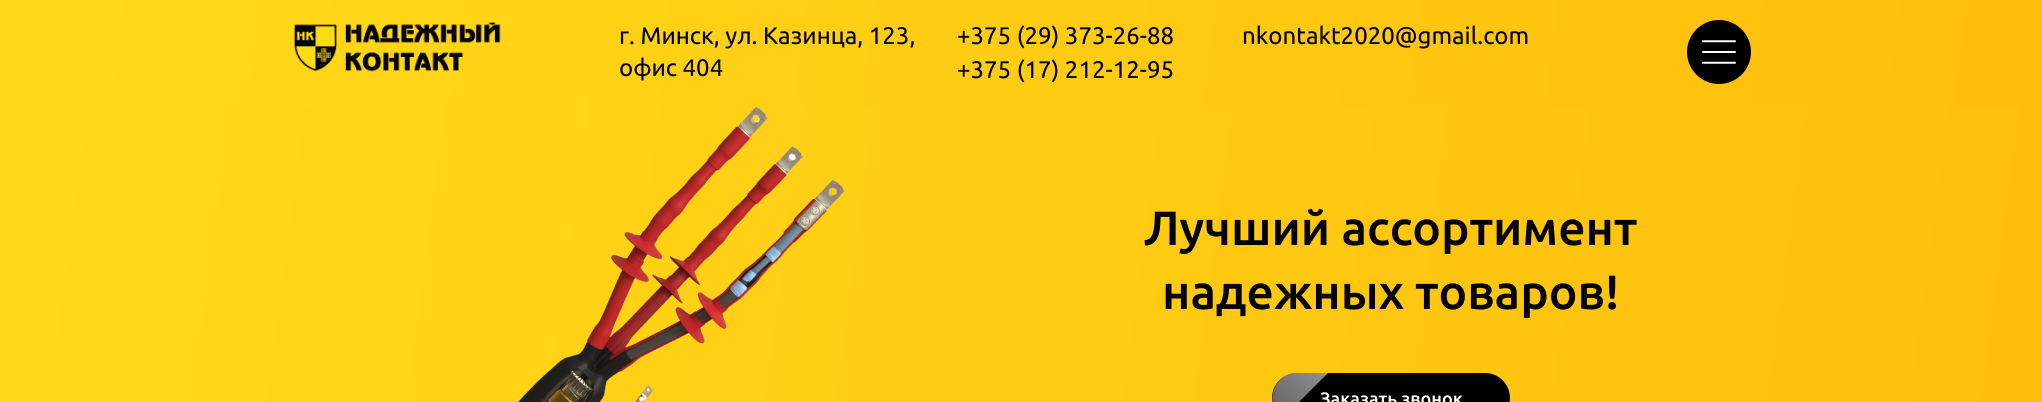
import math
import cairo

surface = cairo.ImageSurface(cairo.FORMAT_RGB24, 2042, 402)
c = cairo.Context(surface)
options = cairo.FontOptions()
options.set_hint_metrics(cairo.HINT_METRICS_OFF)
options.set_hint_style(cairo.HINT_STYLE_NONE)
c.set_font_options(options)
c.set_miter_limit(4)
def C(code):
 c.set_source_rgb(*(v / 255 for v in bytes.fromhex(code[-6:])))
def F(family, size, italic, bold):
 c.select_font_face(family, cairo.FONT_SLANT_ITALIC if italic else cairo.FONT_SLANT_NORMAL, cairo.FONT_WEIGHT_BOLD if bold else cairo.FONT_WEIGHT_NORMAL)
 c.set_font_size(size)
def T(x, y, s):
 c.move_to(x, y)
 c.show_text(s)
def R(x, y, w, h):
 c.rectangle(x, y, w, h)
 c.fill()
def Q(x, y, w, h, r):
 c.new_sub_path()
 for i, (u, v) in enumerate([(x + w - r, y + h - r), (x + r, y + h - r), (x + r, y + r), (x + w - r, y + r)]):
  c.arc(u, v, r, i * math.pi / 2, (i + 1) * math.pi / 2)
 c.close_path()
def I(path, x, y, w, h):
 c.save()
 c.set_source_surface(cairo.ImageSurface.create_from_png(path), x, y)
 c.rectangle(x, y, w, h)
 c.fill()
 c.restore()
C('ffffff')
c.paint()
gradient = cairo.LinearGradient(10,-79,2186,205)
gradient.add_color_stop_rgba(.04,1,0.855,0.098,1)
gradient.add_color_stop_rgba(1,1,0.733,0.047,1)
c.set_source(gradient)
R(0,0,2042,106)
I('1.png',294,22,207,50)
F('Ubuntu',24,0,0)
C('000000')
T(619,44,'г. Минск, ул. Казинца, 123,')
T(619,76,'офис 404')
T(957,44,'+375 (29) 373-26-88')
T(957,78,'+375 (17) 212-12-95')
T(1242,44,'nkontakt2020@gmail.com')
c.new_path()
c.arc(1719,52,32,0,2 * math.pi)
c.fill()
I('2.png',1702,40,34,24)
gradient = cairo.LinearGradient(-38,71,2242,369)
gradient.add_color_stop_rgba(.04,1,0.855,0.098,1)
gradient.add_color_stop_rgba(1,1,0.733,0.047,1)
c.set_source(gradient)
R(0,106,2042,296)
I('3.png',518,106,327,296)
F('Ubuntu Medium',48,0,0)
C('000000')
T(1144,245,'Лучший ассортимент')
T(1162,309,'надежных товаров!')
Q(1272,373,238,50,25)
c.fill()
F('Ubuntu Medium',18,0,0)
C('ffffff')
T(1320,405,'Заказать звонок')
gradient = cairo.LinearGradient(1202,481,1427,249)
gradient.add_color_stop_rgba(.04,1,1,1,.15)
gradient.add_color_stop_rgba(1,1,1,1,1)
gradient.add_color_stop_rgba(1,1,1,1,0)
c.set_source(gradient)
c.new_path()
c.move_to(1297,373)
c.line_to(1328,373)
c.line_to(1283,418)
c.curve_to(1263,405,1273,373,1297,373)
c.close_path()
c.fill()
surface.write_to_png('o.png')
